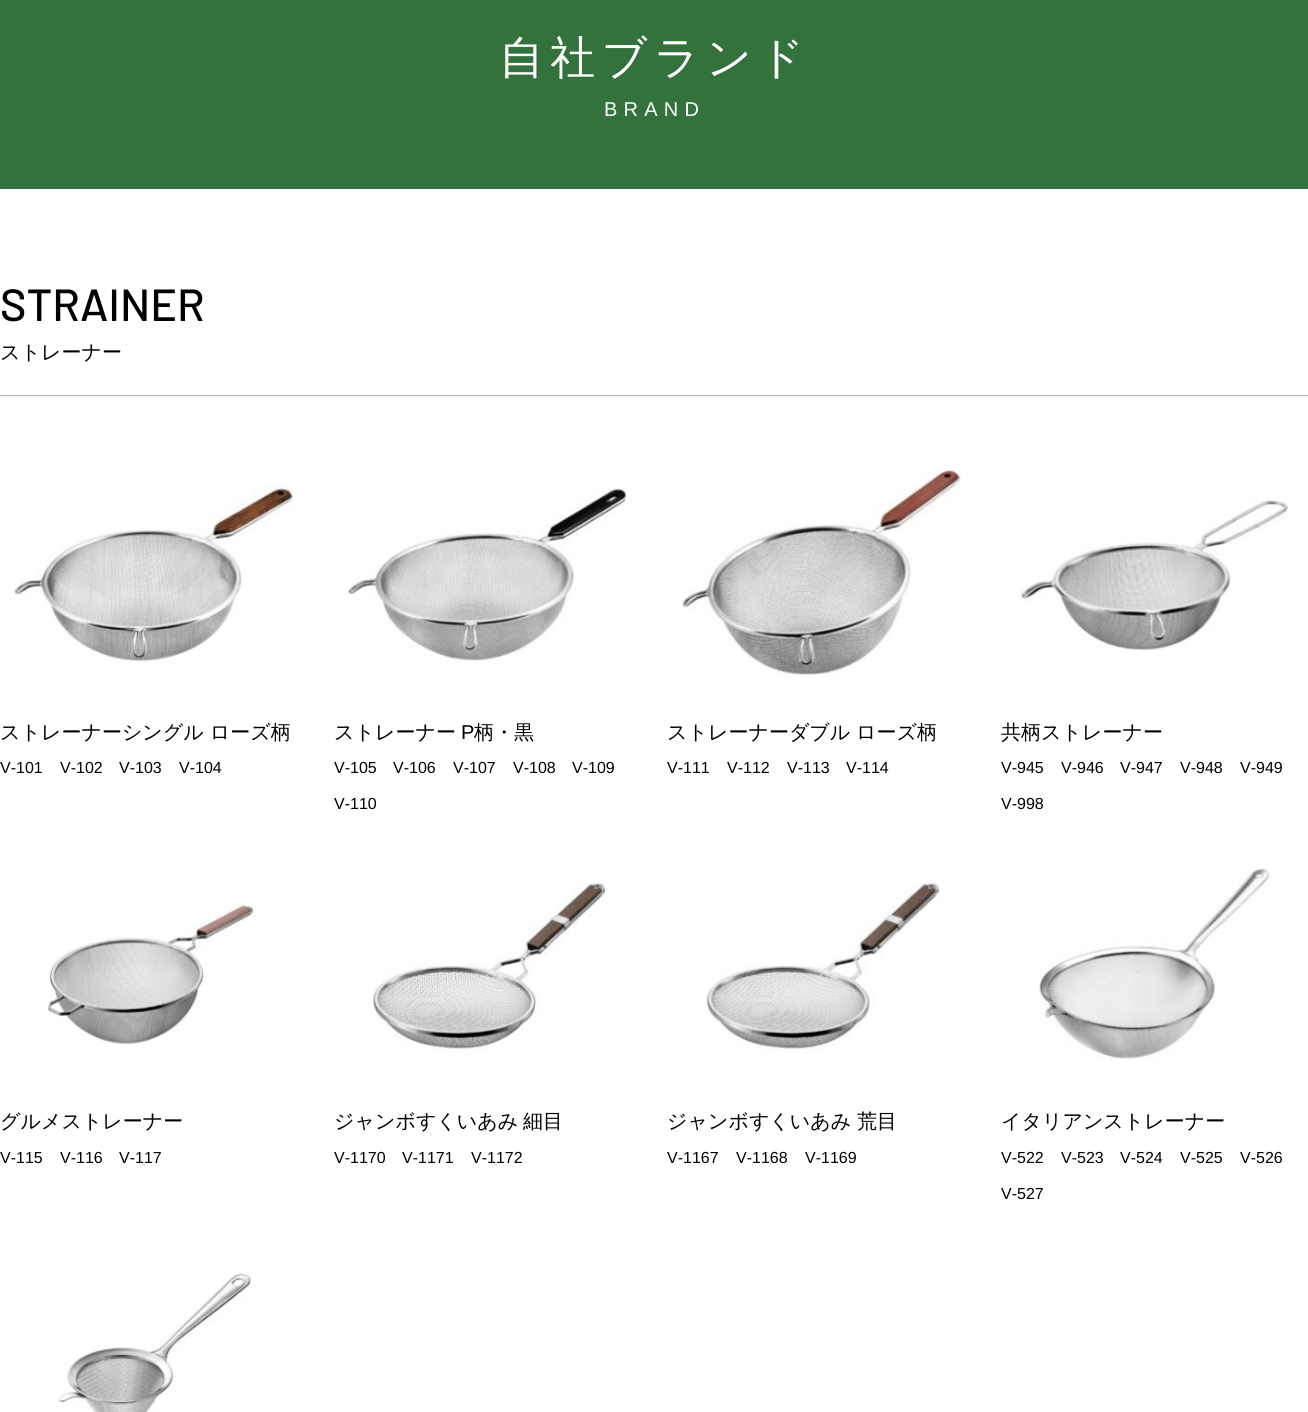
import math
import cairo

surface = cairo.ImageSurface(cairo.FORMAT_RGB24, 1308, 1412)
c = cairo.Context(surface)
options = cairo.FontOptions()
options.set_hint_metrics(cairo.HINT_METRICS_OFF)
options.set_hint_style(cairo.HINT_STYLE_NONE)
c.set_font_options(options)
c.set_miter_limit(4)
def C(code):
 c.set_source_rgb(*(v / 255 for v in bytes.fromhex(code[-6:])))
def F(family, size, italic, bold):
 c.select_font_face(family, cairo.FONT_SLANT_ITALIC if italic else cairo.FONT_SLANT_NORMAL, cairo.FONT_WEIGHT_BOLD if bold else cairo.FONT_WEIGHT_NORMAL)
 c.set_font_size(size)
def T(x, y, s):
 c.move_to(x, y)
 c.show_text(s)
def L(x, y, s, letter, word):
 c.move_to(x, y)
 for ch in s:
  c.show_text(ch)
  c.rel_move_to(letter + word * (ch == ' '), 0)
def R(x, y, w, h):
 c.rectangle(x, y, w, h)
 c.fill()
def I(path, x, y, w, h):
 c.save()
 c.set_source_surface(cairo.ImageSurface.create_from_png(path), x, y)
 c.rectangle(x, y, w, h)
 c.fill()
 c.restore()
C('ffffff')
c.paint()
C('33723c')
R(0,0,1308,189)
F('WenQuanYi Zen Hei Medium',45,0,0)
C('ffffff')
L(499,73,'自社ブランド',6.25,0)
F('Liberation Sans',20,0,0)
L(604,116,'BRAND',6.25,0)
C('b2b2b2')
R(0,395,1308,1)
F('Barlow Medium',45,0,0)
C('000000')
T(0,321,'STRAINER')
F('WenQuanYi Zen Hei Medium',20,0,0)
T(0,359,'ストレーナー')
I('1.png',15,485,278,178)
T(0,739,'ストレーナーシングル ローズ柄')
F('Liberation Sans',16,0,0)
T(0,773,'V-101')
T(60,773,'V-102')
T(119,773,'V-103')
T(179,773,'V-104')
I('2.png',348,486,279,176)
F('WenQuanYi Zen Hei Medium',20,0,0)
T(334,739,'ストレーナー')
F('Liberation Sans',20,0,0)
T(461,739,'P')
F('WenQuanYi Zen Hei Medium',20,0,0)
T(474,739,'柄・黒')
F('Liberation Sans',16,0,0)
T(334,773,'V-105')
T(393,773,'V-106')
T(453,773,'V-107')
T(513,773,'V-108')
T(572,773,'V-109')
T(334,809,'V-110')
I('3.png',683,470,278,207)
F('WenQuanYi Zen Hei Medium',20,0,0)
T(667,739,'ストレーナーダブル')
T(856,739,'ローズ柄')
F('Liberation Sans',16,0,0)
T(667,773,'V-111')
T(727,773,'V-112')
T(787,773,'V-113')
T(846,773,'V-114')
I('4.png',1020,500,268,151)
F('WenQuanYi Zen Hei Medium',20,0,0)
T(1001,739,'共柄ストレーナー')
F('Liberation Sans',16,0,0)
T(1001,773,'V-945')
T(1061,773,'V-946')
T(1120,773,'V-947')
T(1180,773,'V-948')
T(1240,773,'V-949')
T(1001,809,'V-998')
I('5.png',47,904,209,141)
F('WenQuanYi Zen Hei Medium',20,0,0)
T(0,1128,'グルメストレーナー')
F('Liberation Sans',16,0,0)
T(0,1163,'V-115')
T(60,1163,'V-116')
T(119,1163,'V-117')
I('6.png',372,882,235,170)
F('WenQuanYi Zen Hei Medium',20,0,0)
T(334,1128,'ジャンボすくいあみ')
T(523,1128,'細目')
F('Liberation Sans',16,0,0)
T(334,1163,'V-1170')
T(402,1163,'V-1171')
T(471,1163,'V-1172')
I('7.png',706,882,234,170)
F('WenQuanYi Zen Hei Medium',20,0,0)
T(667,1128,'ジャンボすくいあみ')
T(857,1128,'荒目')
F('Liberation Sans',16,0,0)
T(667,1163,'V-1167')
T(736,1163,'V-1168')
T(805,1163,'V-1169')
I('8.png',1039,868,231,191)
F('WenQuanYi Zen Hei Medium',20,0,0)
T(1001,1128,'イタリアンストレーナー')
F('Liberation Sans',16,0,0)
T(1001,1163,'V-522')
T(1061,1163,'V-523')
T(1120,1163,'V-524')
T(1180,1163,'V-525')
T(1240,1163,'V-526')
T(1001,1199,'V-527')
I('9.png',58,1273,194,139)
surface.write_to_png('o.png')
